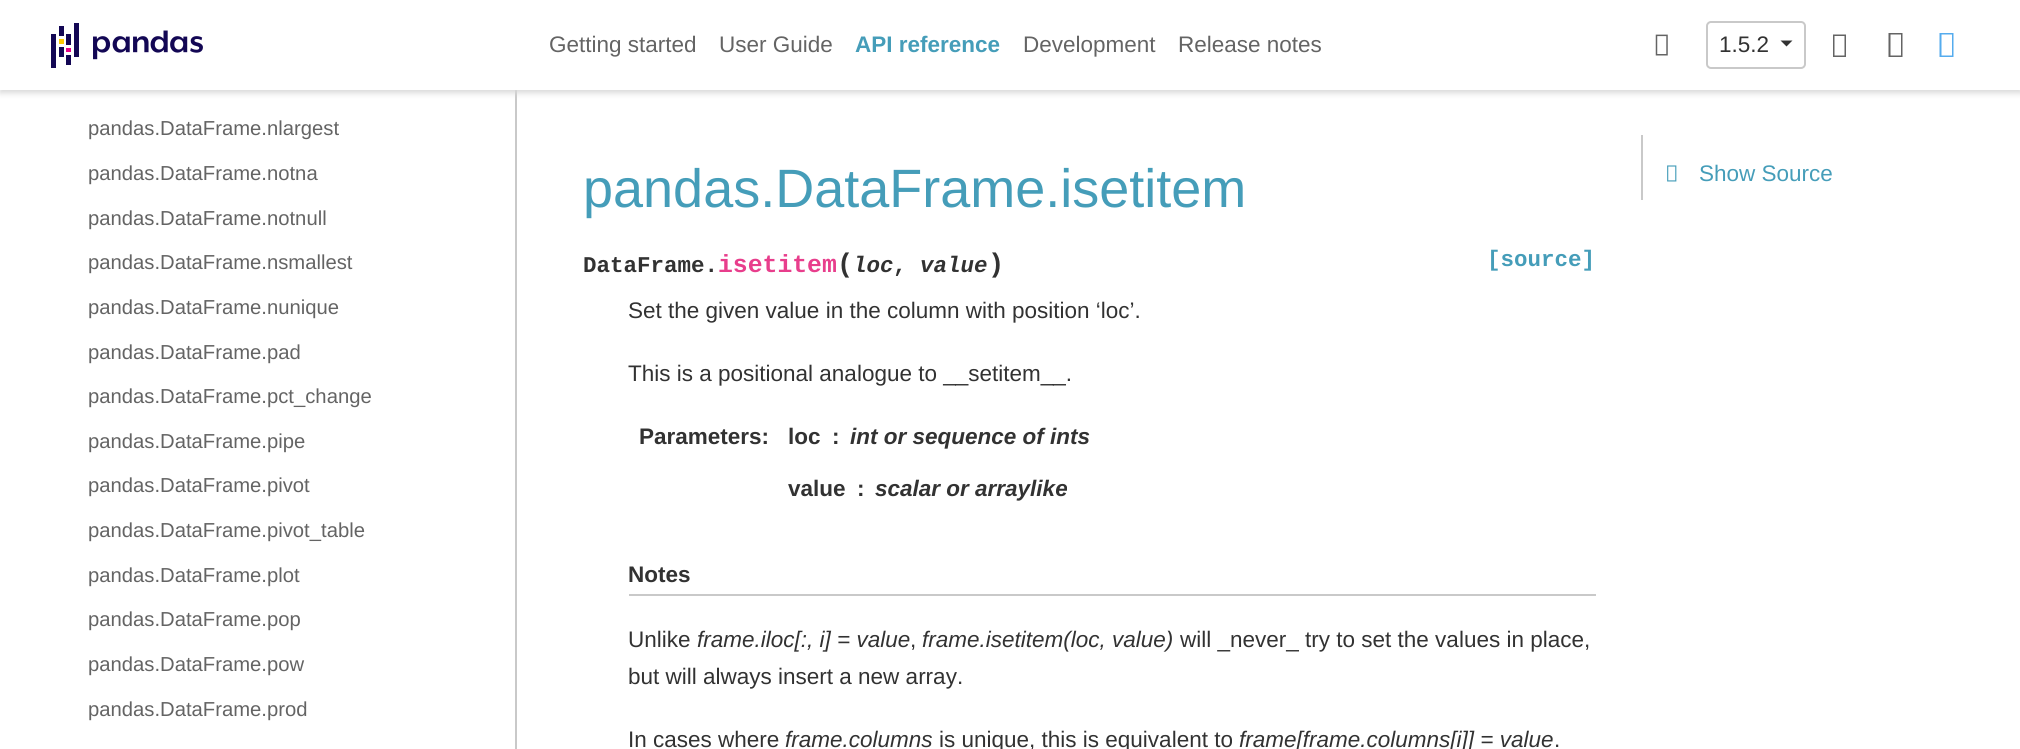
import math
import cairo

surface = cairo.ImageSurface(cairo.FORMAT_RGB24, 2020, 749)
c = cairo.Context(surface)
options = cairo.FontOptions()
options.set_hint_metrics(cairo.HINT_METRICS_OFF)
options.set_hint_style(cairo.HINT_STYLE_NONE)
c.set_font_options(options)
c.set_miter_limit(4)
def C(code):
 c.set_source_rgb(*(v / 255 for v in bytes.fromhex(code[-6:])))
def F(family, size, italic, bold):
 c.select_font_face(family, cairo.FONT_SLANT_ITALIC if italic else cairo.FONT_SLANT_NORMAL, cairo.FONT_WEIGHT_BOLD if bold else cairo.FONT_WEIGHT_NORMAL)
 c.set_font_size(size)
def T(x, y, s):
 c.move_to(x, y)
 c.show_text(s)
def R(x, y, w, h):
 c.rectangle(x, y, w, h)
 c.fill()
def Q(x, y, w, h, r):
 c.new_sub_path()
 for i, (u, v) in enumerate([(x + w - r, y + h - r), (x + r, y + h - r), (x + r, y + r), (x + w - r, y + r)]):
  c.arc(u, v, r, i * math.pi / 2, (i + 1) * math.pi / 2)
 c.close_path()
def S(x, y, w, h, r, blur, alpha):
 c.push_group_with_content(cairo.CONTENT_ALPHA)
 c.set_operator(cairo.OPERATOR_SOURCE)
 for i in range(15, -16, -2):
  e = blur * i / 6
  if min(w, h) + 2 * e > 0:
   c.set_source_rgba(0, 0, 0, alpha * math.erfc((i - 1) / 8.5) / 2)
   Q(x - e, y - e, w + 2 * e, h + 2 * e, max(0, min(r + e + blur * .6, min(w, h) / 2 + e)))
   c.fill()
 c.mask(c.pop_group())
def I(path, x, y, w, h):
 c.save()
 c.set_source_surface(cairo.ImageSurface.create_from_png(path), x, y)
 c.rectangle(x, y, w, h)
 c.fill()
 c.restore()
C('ffffff')
c.paint()
C('c9c9c9')
R(515,90,2,659)
c.save()
c.rectangle(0,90,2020,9)
c.clip()
C('d8d8d8')
S(0,3,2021,90,0,3,1)
c.restore()
I('1.png',51,23,152,45)
F('Liberation Sans',22.5,0,0)
C('646464')
T(549,52,'Getting started')
T(719,52,'User Guide')
F('Liberation Sans',22.5,0,1)
C('459db9')
T(855,52,'API reference')
F('Liberation Sans',22.5,0,0)
C('646464')
T(1023,52,'Development')
T(1178,52,'Release notes')
I('2.png',1655,34,13,22)
Q(1707,22,98,46,4)
C('c9c9c9')
c.stroke()
C('323232')
T(1719,52,'1.5.2')
c.new_path()
c.move_to(1780.5,40.5)
c.line_to(1792.5,40.5)
c.line_to(1786.5,46.5)
c.close_path()
c.fill()
C('646464')
c.new_path()
c.move_to(1833,57)
c.line_to(1833,34.5)
c.line_to(1846,34.5)
c.line_to(1846,57)
c.close_path()
c.move_to(1834.5,55.5)
c.line_to(1844.5,55.5)
c.line_to(1844.5,36)
c.line_to(1834.5,36)
c.close_path()
c.fill()
c.new_path()
c.move_to(1888.5,57)
c.line_to(1888.5,33)
c.line_to(1902.5,33)
c.line_to(1902.5,57)
c.close_path()
c.move_to(1890.5,55.5)
c.line_to(1901,55.5)
c.line_to(1901,34.5)
c.line_to(1890.5,34.5)
c.close_path()
c.fill()
C('55acee')
c.new_path()
c.move_to(1939.5,57)
c.line_to(1939.5,33)
c.line_to(1953.5,33)
c.line_to(1953.5,57)
c.close_path()
c.move_to(1941.5,55.5)
c.line_to(1952,55.5)
c.line_to(1952,34.5)
c.line_to(1941.5,34.5)
c.close_path()
c.fill()
F('Liberation Sans',20.25,0,0)
C('646464')
T(88,135,'pandas.DataFrame.nlargest')
T(88,180,'pandas.DataFrame.notna')
T(88,225,'pandas.DataFrame.notnull')
T(88,269,'pandas.DataFrame.nsmallest')
T(88,314,'pandas.DataFrame.nunique')
T(88,359,'pandas.DataFrame.pad')
T(88,403,'pandas.DataFrame.pct_change')
T(88,448,'pandas.DataFrame.pipe')
T(88,492,'pandas.DataFrame.pivot')
T(88,537,'pandas.DataFrame.pivot_table')
T(88,582,'pandas.DataFrame.plot')
T(88,626,'pandas.DataFrame.pop')
T(88,671,'pandas.DataFrame.pow')
T(88,716,'pandas.DataFrame.prod')
F('Liberation Sans',54,0,0)
C('459db9')
T(583,207,'pandas.DataFrame.isetitem')
F('Liberation Mono',22.5,0,1)
C('323232')
T(583,272,'DataFrame.')
F('Liberation Mono',24.75,0,1)
C('e83e8c')
T(718,272,'isetitem')
F('Liberation Mono',27,0,1)
C('323232')
T(837,272,'(')
F('Liberation Mono',22.5,1,1)
T(853,272,'loc')
F('Liberation Mono',22.5,0,1)
T(893,272,',')
F('Liberation Mono',22.5,1,1)
T(920,272,'value')
F('Liberation Mono',27,0,1)
T(988,272,')')
F('Liberation Mono',22.5,0,1)
C('459db9')
T(1487,266,'[source]')
F('Liberation Sans',22.5,0,0)
C('323232')
T(628,318,'Set the given value in the column with position ‘loc’.')
T(628,381,'This is a positional analogue to __setitem__.')
F('Liberation Sans',22.5,0,1)
T(639,444,'Parameters:')
T(788,444,'loc')
T(832,444,':')
F('Liberation Sans',22.5,1,1)
T(850,444,'int or sequence of ints')
F('Liberation Sans',22.5,0,1)
T(788,496,'value')
T(857,496,':')
F('Liberation Sans',22.5,1,1)
T(875,496,'scalar or arraylike')
C('c9c9c9')
R(629,594,967,2)
F('Liberation Sans',22.5,0,1)
C('323232')
T(628,582,'Notes')
F('Liberation Sans',22.5,0,0)
T(628,647,'Unlike')
F('Liberation Sans',22.5,1,0)
T(697,647,'frame.iloc[:, i] = value')
F('Liberation Sans',22.5,0,0)
T(910,647,',')
F('Liberation Sans',22.5,1,0)
T(922,647,'frame.isetitem(loc, value)')
F('Liberation Sans',22.5,0,0)
T(1180,647,'will _never_ try to set the values in place,')
T(628,684,'but will always insert a new array.')
T(628,747,'In cases where')
F('Liberation Sans',22.5,1,0)
T(785,747,'frame.columns')
F('Liberation Sans',22.5,0,0)
T(939,747,'is unique, this is equivalent to')
F('Liberation Sans',22.5,1,0)
T(1239,747,'frame[frame.columns[i]] = value')
F('Liberation Sans',22.5,0,0)
T(1554,747,'.')
C('c9c9c9')
R(1641,135,2,65)
I('3.png',1667,165,10,17)
C('459db9')
T(1699,181,'Show Source')
surface.write_to_png('o.png')
